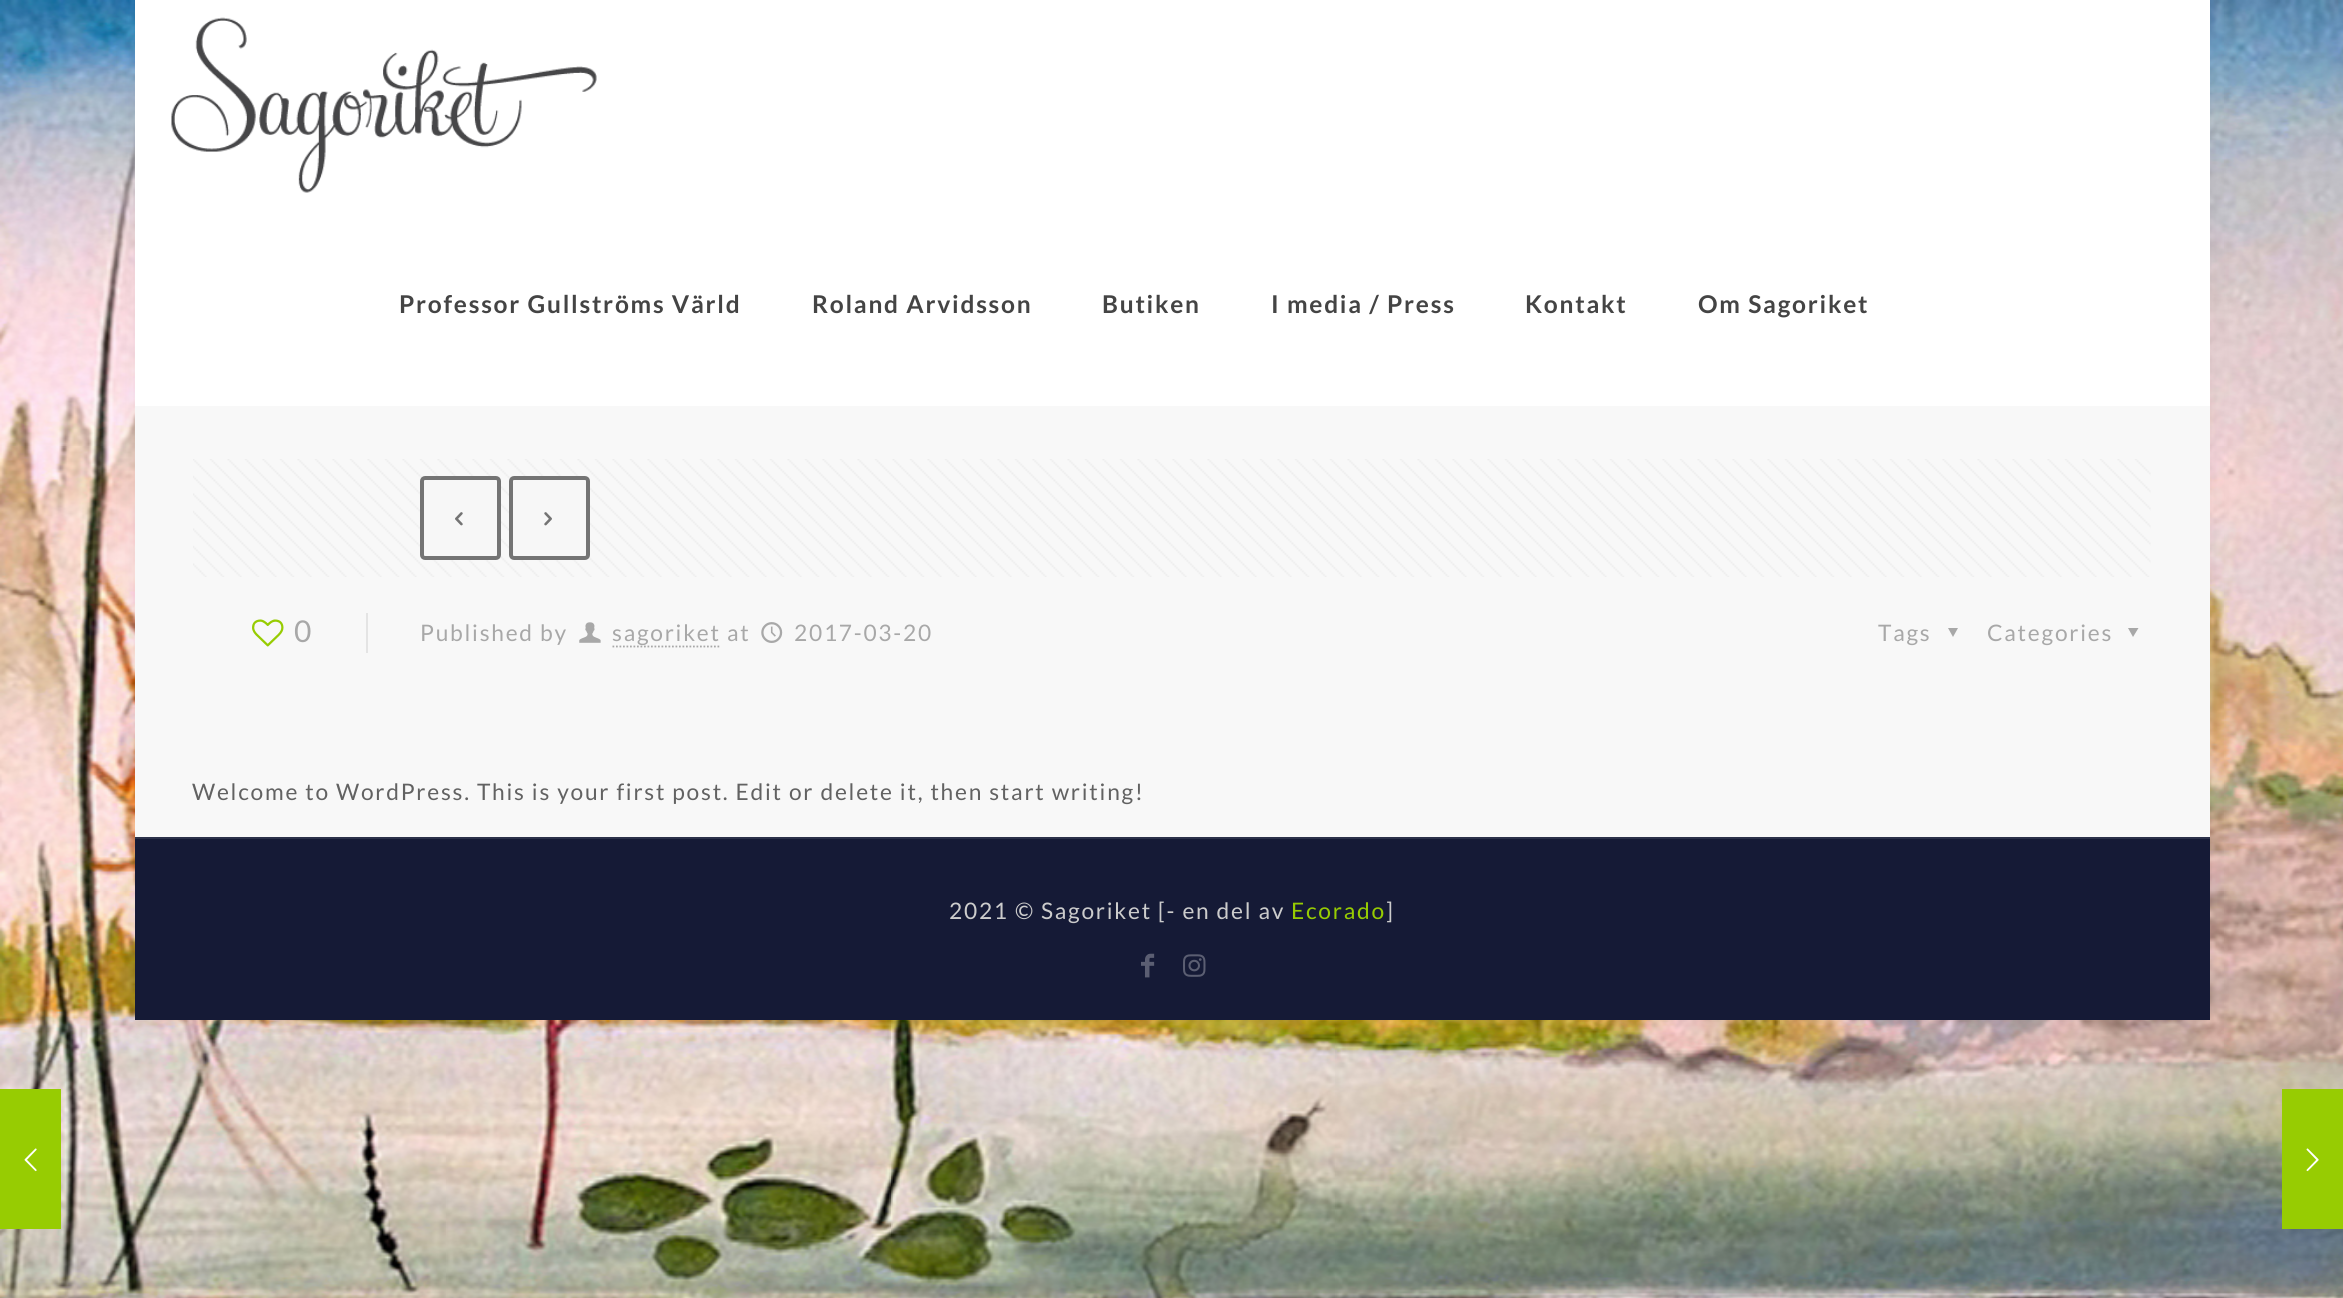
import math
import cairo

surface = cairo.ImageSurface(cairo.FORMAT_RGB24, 2343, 1298)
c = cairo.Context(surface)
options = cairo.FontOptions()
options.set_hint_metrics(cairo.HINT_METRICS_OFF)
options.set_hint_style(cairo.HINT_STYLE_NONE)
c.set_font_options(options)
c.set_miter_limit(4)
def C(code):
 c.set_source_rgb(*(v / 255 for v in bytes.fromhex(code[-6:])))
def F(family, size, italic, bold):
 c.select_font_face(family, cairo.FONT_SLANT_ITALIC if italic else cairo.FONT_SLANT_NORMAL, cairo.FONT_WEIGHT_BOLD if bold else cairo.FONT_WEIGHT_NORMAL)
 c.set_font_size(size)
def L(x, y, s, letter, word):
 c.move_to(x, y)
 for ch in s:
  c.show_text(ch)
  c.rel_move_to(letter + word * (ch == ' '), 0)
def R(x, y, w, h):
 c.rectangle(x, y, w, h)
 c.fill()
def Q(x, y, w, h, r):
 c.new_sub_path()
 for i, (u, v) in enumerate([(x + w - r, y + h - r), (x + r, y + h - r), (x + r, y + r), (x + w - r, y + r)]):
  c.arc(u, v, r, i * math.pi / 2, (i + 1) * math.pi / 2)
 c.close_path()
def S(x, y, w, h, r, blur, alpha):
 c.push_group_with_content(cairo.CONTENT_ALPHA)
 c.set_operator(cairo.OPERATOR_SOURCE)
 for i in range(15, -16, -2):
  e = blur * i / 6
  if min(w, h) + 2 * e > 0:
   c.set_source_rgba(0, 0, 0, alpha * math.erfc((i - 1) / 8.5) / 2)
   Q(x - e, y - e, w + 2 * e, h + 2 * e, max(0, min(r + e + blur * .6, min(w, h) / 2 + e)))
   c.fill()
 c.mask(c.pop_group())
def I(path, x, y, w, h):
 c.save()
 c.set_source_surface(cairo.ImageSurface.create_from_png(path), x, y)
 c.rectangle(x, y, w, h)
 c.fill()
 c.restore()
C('ffffff')
c.paint()
I('1.png',0,0,2343,1298)
C('000000')
S(135,0,2075,1020,0,13,.06)
C('f8f8f8')
R(135,406,2075,431)
C('ffffff')
R(135,0,2075,406)
I('2.png',171,17,426,176)
F('Lato',24.5,0,1)
C('444444')
L(399,313,'Professor Gullströms Värld',1.75,0)
L(812,313,'Roland Arvidsson',1.75,0)
L(1102,313,'Butiken',1.75,0)
L(1271,313,'I media / Press',1.75,0)
L(1525,313,'Kontakt',1.75,0)
L(1698,313,'Om Sagoriket',1.75,0)
I('3.png',193,459,1958,118)
C('f7f7f7')
Q(422,478,77,80,3)
c.fill_preserve()
C('747474')
c.set_line_width(4)
c.stroke()
I('4.png',455,512,8,14)
C('f7f7f7')
Q(511,478,77,80,3)
c.fill_preserve()
C('747474')
c.stroke()
I('5.png',544,512,8,14)
I('6.png',252,619,32,28)
F('Lato',30,0,0)
C('a8a8a8')
L(294,642,'0',1.75,0)
C('e4e4e4')
R(366,613,2,40)
F('Lato',22.75,0,0)
C('a8a8a8')
L(420,641,'Published by',1.75,0)
I('7.png',579,622,22,21)
c.new_path()
c.move_to(612.5,646.5)
c.line_to(721,646.5)
c.set_line_width(1.8)
c.set_dash([1.75,1.75])
c.stroke()
L(612,641,'sagoriket at',1.75,0)
I('8.png',761,622,22,21)
L(794,641,'2017-03-20',1.75,0)
L(1878,641,'Tags',1.75,0)
c.new_path()
c.move_to(1958,628)
c.line_to(1953,637)
c.line_to(1948,628)
c.close_path()
c.fill()
L(1987,641,'Categories',1.75,0)
c.new_path()
c.move_to(2138.5,628)
c.line_to(2133,637)
c.line_to(2128,628)
c.close_path()
c.fill()
C('626262')
L(192,800,'Welcome to WordPress. This is your first post. Edit or delete it, then start writing!',1.75,0)
C('151a36')
R(135,839,2075,181)
C('2c314a')
R(135,837,2075,2)
C('cccccc')
L(949,919,'2021 © Sagoriket [- en del av',1.75,0)
C('97cc02')
L(1291,919,'Ecorado',1.75,0)
C('cccccc')
L(1386,919,']',1.75,0)
I('9.png',1141,953,14,25)
I('10.png',1183,954,23,23)
C('97cc02')
R(0,1089,61,140)
I('11.png',24,1148,13,24)
R(2282,1089,61,140)
I('12.png',2306,1148,13,24)
surface.write_to_png('o.png')
